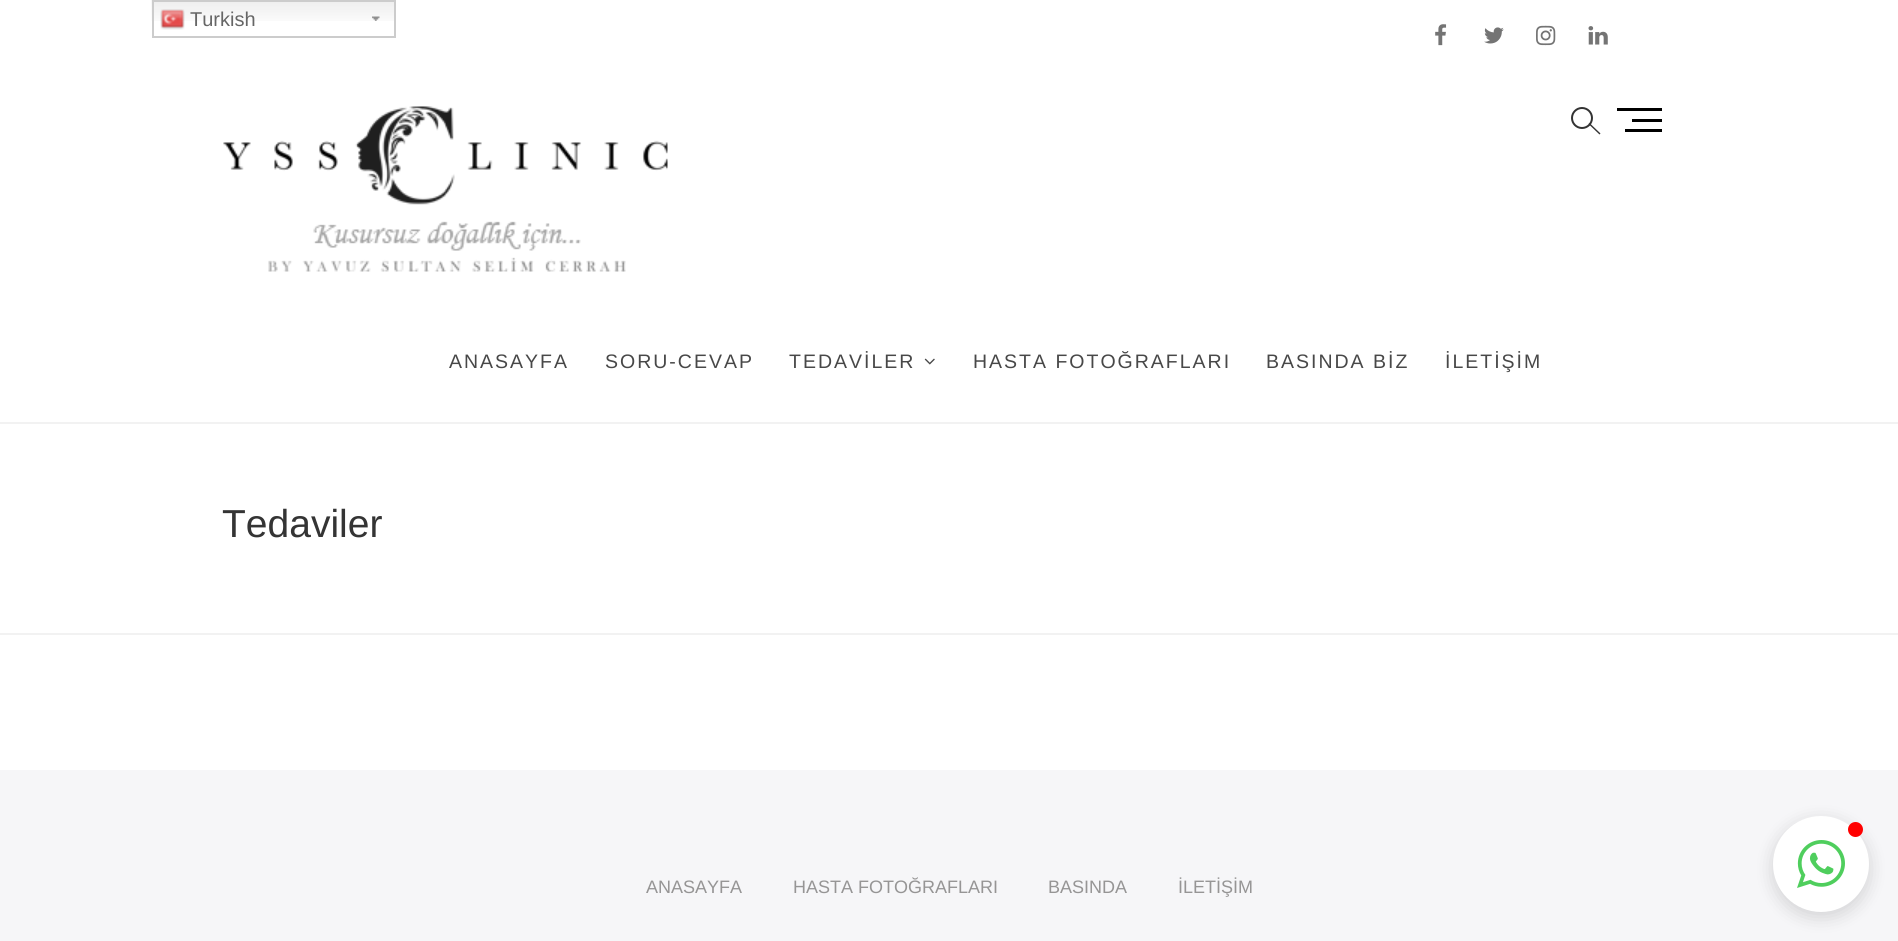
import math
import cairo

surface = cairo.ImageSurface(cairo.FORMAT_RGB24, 1898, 941)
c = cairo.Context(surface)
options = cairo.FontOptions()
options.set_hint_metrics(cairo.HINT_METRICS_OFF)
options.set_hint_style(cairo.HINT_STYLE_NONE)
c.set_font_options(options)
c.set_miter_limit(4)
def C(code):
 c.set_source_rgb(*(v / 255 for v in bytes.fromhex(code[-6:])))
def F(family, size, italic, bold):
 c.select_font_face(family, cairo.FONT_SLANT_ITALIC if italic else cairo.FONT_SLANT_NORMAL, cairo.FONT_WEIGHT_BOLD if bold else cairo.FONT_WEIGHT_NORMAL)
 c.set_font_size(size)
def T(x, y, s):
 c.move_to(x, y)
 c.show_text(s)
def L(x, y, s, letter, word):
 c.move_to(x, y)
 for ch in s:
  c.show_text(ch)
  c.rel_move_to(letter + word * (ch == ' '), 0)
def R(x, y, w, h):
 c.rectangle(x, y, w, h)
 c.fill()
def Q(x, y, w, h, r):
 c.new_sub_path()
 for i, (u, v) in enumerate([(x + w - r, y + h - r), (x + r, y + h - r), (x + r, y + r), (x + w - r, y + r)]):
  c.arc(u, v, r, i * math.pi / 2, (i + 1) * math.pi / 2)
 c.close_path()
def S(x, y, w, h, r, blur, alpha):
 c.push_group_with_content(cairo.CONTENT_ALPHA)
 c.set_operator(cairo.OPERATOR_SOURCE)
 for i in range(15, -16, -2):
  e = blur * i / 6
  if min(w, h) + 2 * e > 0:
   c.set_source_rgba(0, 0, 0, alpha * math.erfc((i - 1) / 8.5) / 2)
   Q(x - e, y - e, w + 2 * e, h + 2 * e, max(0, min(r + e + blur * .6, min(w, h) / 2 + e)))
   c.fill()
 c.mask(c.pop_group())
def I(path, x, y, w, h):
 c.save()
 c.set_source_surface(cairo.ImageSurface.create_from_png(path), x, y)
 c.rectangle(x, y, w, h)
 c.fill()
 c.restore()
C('ffffff')
c.paint()
I('1.png',151,0,243,21)
I('2.png',372,16,8,5)
c.rectangle(153,1,242,36)
C('cccccc')
c.stroke()
I('3.png',160,9,25,21)
F('Liberation Sans',20,0,0)
C('666666')
T(190,26,'Turkish')
I('4.png',1435,24,12,22)
I('5.png',1484,27,20,17)
I('6.png',1536,25,20,21)
I('7.png',1588,26,20,19)
C('f2f2f2')
R(0,422,1898,2)
I('8.png',223,106,445,166)
c.arc(1582,118,10,0,2 * math.pi)
C('333333')
c.stroke()
c.new_path()
c.move_to(1588.5,124)
c.line_to(1589.5,123)
c.line_to(1600.5,133.5)
c.line_to(1599.5,134.5)
c.close_path()
c.fill()
C('000000')
R(1632,119,30,3)
R(1617,108,45,3)
R(1625,129,37,3)
F('Arimo',19.5,0,0)
C('484848')
L(449,368,'ANASAYFA',2,0)
L(605,368,'SORU-CEVAP',2,0)
L(789,368,'TEDAVİLER',2,0)
I('9.png',924,358,11,7)
L(973,368,'HASTA FOTOĞRAFLARI',2,0)
L(1266,368,'BASINDA BİZ',2,0)
L(1445,368,'İLETİŞİM',2,0)
F('Arimo',39,0,0)
C('343434')
T(222,537,'Tedaviler')
C('f2f2f2')
R(0,633,1898,2)
C('f6f6f8')
R(0,770,1898,171)
F('Arimo',18,0,0)
C('969595')
T(646,893,'ANASAYFA')
T(793,893,'HASTA FOTOĞRAFLARI')
T(1048,893,'BASINDA')
T(1178,893,'İLETİŞİM')
C('000000')
S(1773,821,96,96,48,9,.15)
C('ffffff')
c.arc(1821,864,48,0,2 * math.pi)
c.fill()
C('ff0000')
c.arc(1855.5,829.5,7.5,0,2 * math.pi)
c.fill()
I('10.png',1797,840,48,48)
surface.write_to_png('o.png')
